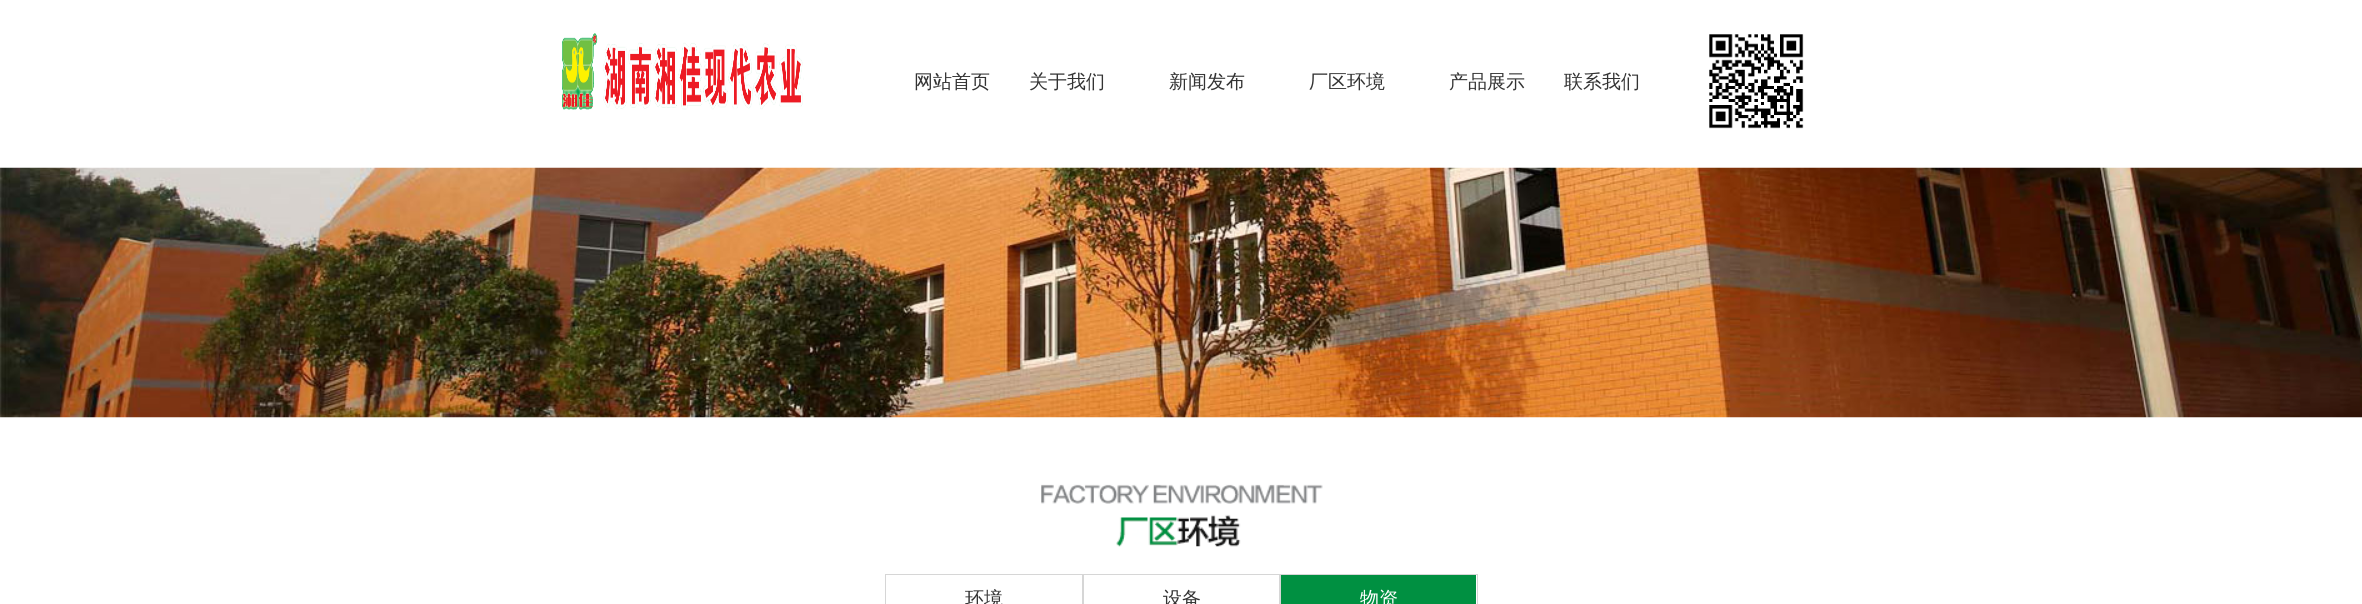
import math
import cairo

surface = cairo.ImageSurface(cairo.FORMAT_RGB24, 2362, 604)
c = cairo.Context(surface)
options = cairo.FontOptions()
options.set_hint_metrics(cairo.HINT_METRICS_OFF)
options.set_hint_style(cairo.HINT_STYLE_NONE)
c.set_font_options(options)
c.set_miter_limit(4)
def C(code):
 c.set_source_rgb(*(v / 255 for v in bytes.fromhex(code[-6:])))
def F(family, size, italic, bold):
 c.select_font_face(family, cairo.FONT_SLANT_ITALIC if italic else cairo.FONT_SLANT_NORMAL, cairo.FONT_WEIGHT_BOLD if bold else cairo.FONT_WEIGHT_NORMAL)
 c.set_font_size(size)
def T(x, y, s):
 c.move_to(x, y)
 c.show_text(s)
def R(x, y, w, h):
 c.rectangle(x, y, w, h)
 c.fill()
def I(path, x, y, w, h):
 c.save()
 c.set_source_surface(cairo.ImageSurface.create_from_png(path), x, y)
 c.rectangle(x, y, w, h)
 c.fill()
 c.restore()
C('ffffff')
c.paint()
I('1.png',562,33,242,77)
F('WenQuanYi Zen Hei Medium',19,0,0)
C('333333')
T(914,88,'网站首页')
T(1029,88,'关于我们')
T(1169,88,'新闻发布')
T(1309,88,'厂区环境')
T(1449,88,'产品展示')
T(1564,88,'联系我们')
I('2.png',1709,34,95,95)
I('3.png',0,167,2362,251)
I('4.png',1041,484,282,63)
c.rectangle(885.5,574.5,197,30)
C('d6d6d6')
c.set_line_width(1)
c.stroke()
C('333333')
T(965,605,'环境')
c.rectangle(1083.5,574.5,196,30)
C('d6d6d6')
c.stroke()
C('333333')
T(1163,605,'设备')
c.rectangle(1280.5,574.5,197,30)
C('d6d6d6')
c.stroke()
C('009041')
R(1281,575,195,29)
C('ffffff')
T(1360,605,'物资')
surface.write_to_png('o.png')
